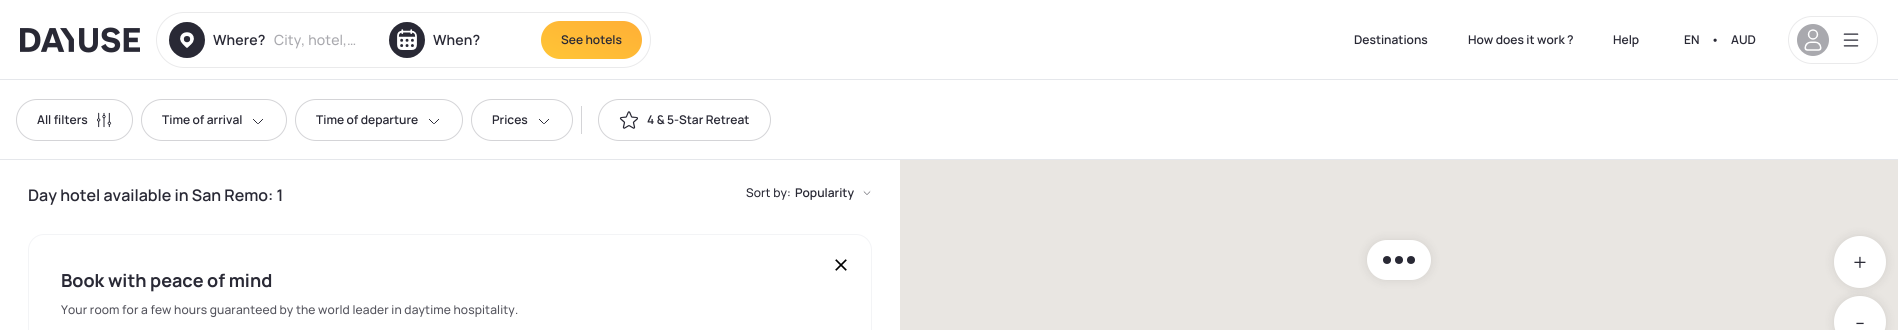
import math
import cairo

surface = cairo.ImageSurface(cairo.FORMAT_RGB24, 1898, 330)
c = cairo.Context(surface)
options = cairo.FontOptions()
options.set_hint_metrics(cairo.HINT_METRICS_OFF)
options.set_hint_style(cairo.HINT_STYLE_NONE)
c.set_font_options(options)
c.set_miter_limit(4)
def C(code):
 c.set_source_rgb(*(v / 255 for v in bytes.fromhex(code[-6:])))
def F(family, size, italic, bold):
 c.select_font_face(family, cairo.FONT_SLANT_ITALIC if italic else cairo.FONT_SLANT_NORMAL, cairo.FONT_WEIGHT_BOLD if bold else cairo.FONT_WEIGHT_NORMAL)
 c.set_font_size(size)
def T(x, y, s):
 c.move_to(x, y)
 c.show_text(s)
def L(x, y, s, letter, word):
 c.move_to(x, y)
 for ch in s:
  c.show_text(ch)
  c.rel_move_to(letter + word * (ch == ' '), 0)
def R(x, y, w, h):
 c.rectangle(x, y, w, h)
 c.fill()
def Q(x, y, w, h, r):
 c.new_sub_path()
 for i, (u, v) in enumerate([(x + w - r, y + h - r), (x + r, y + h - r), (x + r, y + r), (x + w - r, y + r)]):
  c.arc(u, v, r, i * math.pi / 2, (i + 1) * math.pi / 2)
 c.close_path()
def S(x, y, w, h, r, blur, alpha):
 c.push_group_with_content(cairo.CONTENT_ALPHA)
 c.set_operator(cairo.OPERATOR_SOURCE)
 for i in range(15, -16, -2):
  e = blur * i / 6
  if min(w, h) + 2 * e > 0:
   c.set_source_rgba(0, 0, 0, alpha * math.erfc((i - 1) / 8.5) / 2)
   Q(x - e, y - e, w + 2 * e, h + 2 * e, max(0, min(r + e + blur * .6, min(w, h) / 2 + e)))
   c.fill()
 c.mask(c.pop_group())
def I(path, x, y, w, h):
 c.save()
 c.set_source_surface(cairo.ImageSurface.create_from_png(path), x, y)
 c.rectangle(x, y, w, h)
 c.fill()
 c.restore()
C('ffffff')
c.paint()
C('e5e7eb')
R(0,79,1898,1)
I('1.png',20,27,120,26)
Q(156.5,12.5,494,55,27.5)
C('eaeaeb')
c.set_line_width(1)
c.stroke()
I('2.png',169,22,36,36)
F('Manrope SemiBold',14,0,0)
C('292935')
L(213,45,'Where?',.1,0)
F('Manrope Medium',14,0,0)
C('a9a9ae')
L(274,45,'City, hotel,…',.1,0)
I('3.png',389,22,36,36)
F('Manrope SemiBold',14,0,0)
C('292935')
L(433,45,'When?',.1,0)
gradient = cairo.LinearGradient(604,6.7,579,73)
gradient.add_color_stop_rgba(0,1,0.686,0.212,1)
gradient.add_color_stop_rgba(1,1,0.773,0.212,1)
c.set_source(gradient)
Q(541,21,101,38,19)
c.fill()
F('Manrope SemiBold',12,0,0)
C('292935')
T(561,44,'See hotels')
T(1354,44,'Destinations')
T(1468,44,'How does it work ?')
T(1613,44,'Help')
T(1684,44,'EN')
T(1711,44,'•')
T(1731,44,'AUD')
Q(1788.5,16.5,89,47,23.5)
C('eaeaeb')
c.stroke()
C('a9a9ae')
c.arc(1813,40,16,0,2 * math.pi)
c.fill()
I('4.png',1804,29,18,22)
I('5.png',1843,33,16,14)
C('e5e7eb')
R(0,159,1898,1)
Q(16.5,99.5,116,41,20.5)
C('d4d4d7')
c.stroke()
C('292935')
T(37,124,'All filters')
I('6.png',97,112,15,16)
Q(141.5,99.5,145,41,20.5)
C('d4d4d7')
c.stroke()
C('292935')
T(162,124,'Time of arrival')
I('7.png',253,119,10,5)
Q(295.5,99.5,167,41,20.5)
C('d4d4d7')
c.stroke()
C('292935')
T(316,124,'Time of departure')
I('7.png',429,119,10,5)
Q(471.5,99.5,101,41,20.5)
C('d4d4d7')
c.stroke()
C('292935')
T(492,124,'Prices')
I('7.png',539,119,10,5)
C('d4d4d7')
R(581,106,1,28)
Q(598.5,99.5,172,41,20.5)
c.stroke()
I('8.png',619,111,19,18)
C('292935')
T(647,124,'4 & 5-Star Retreat')
F('Manrope SemiBold',16,0,0)
T(28,201,'Day hotel available in San Remo: 1')
F('Manrope Medium',12,0,0)
L(746,197,'Sort by:',.12,0)
F('Manrope SemiBold',12,0,0)
T(795,197,'Popularity')
I('9.png',863,190,8,5)
Q(28.5,234.5,843,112,15.5)
C('f3f4f6')
c.stroke()
I('10.png',835,259,12,12)
F('Manrope',18,0,1)
C('292935')
T(61,287,'Book with peace of mind')
F('Manrope Medium',12,0,0)
C('54545d')
L(61,314,'Your room for a few hours guaranteed by the world leader in daytime hospitality.',.12,0)
C('e9e6e2')
R(900,160,998,170)
C('000000')
S(1367,240,64,40,20,5,.1)
C('ffffff')
Q(1367,240,64,40,20)
c.fill()
C('292935')
c.arc(1387,260,4,0,2 * math.pi)
c.fill()
c.arc(1399,260,4,0,2 * math.pi)
c.fill()
c.arc(1411,260,4,0,2 * math.pi)
c.fill()
C('000000')
S(1834,236,52,52,26,5,.1)
C('ffffff')
c.arc(1860,262,26,0,2 * math.pi)
c.fill()
F('Manrope Light',24,0,0)
C('292935')
T(1853,271,'+')
C('000000')
S(1834,296,52,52,26,5,.1)
C('ffffff')
c.arc(1860,322,26,0,2 * math.pi)
c.fill()
C('292935')
T(1855,331,'-')
surface.write_to_png('o.png')
